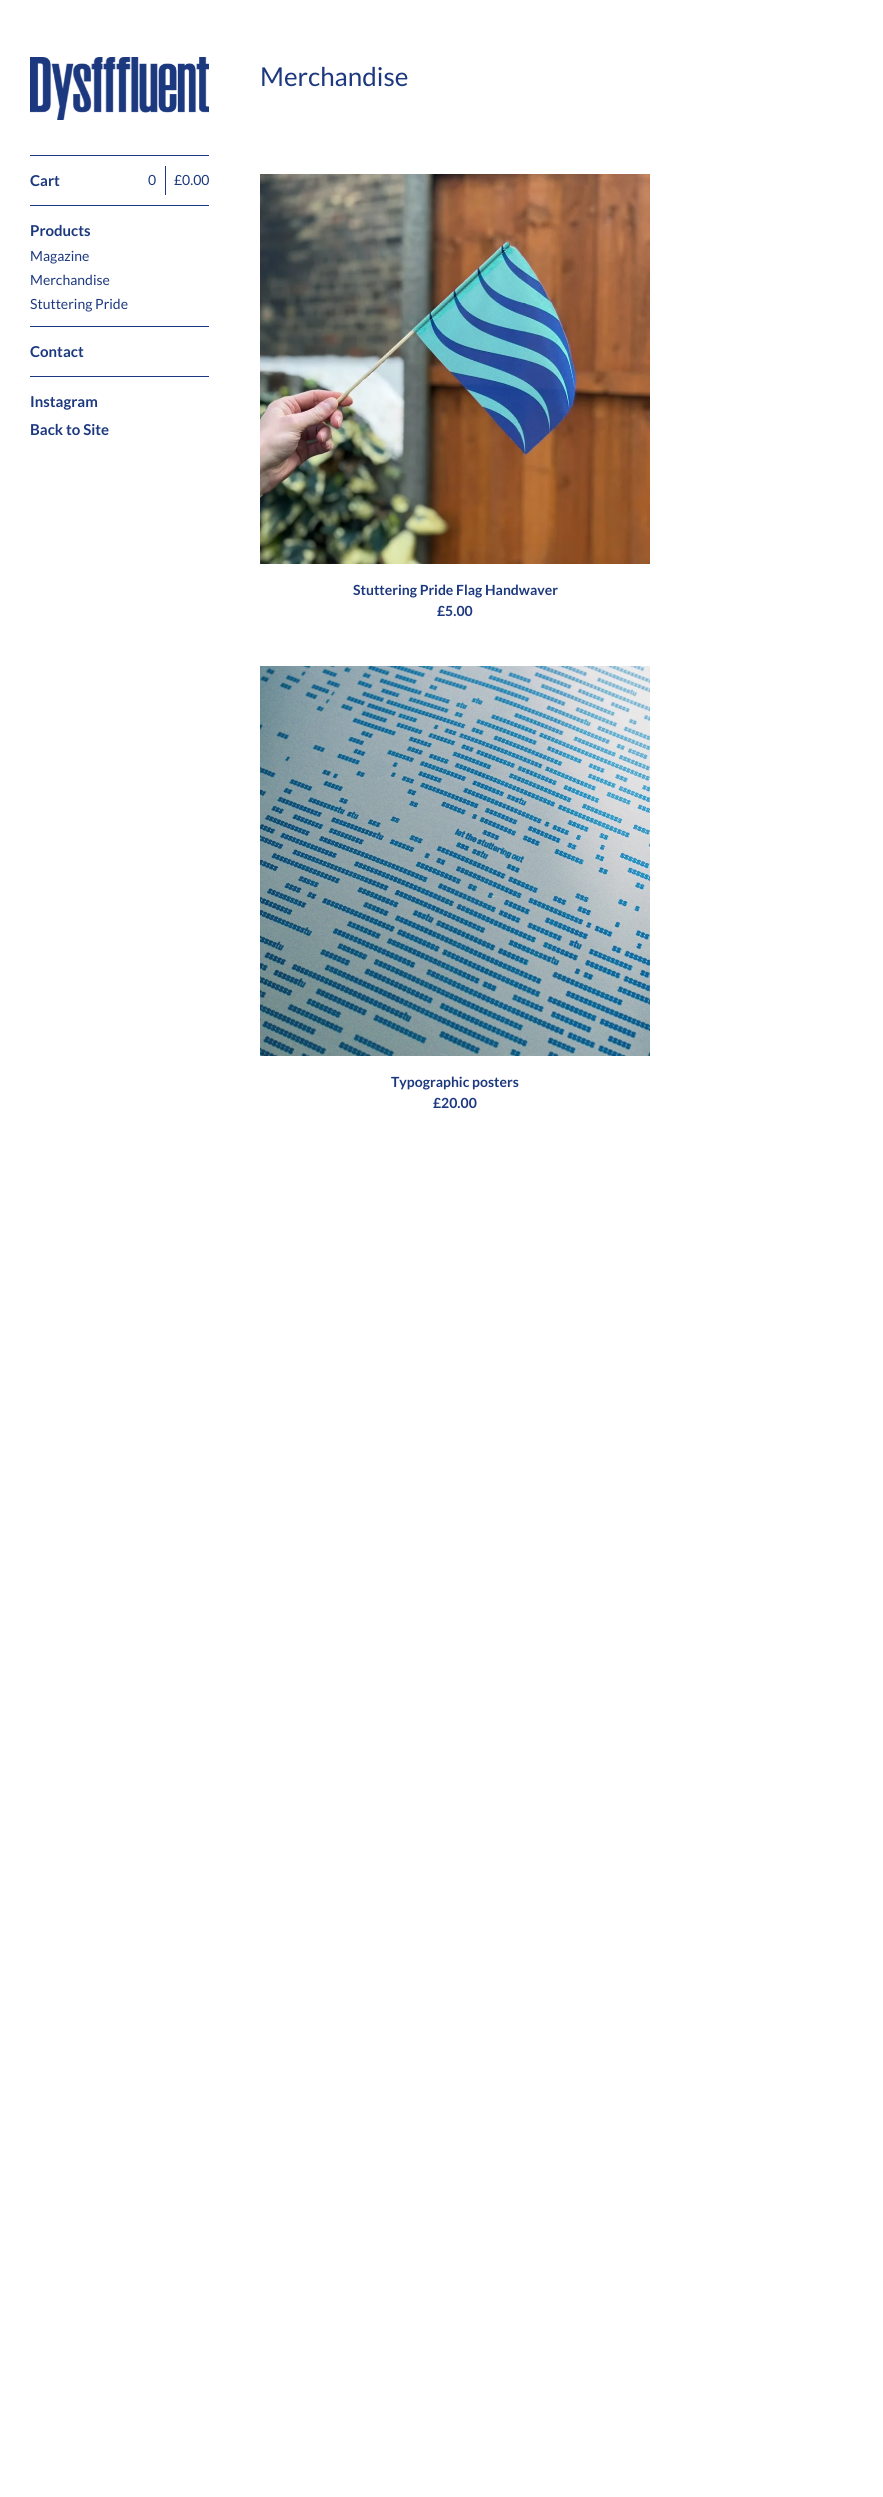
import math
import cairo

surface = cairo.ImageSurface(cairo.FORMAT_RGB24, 883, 2497)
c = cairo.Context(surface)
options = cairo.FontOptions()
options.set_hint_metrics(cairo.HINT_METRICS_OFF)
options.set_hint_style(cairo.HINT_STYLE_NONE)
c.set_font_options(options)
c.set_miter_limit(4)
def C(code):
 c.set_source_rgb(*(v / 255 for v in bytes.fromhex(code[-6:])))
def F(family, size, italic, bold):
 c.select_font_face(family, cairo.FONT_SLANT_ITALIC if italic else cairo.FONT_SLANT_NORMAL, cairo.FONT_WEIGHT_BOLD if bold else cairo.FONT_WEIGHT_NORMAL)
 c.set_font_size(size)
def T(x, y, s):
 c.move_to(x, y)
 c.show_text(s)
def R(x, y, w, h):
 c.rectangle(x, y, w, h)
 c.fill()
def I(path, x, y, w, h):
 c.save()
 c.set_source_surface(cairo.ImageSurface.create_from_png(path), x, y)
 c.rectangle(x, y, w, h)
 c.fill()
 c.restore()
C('ffffff')
c.paint()
I('1.png',30,57,179,63)
C('1c387f')
R(30,155,179,1)
F('Lato',15,0,1)
T(30,186,'Cart')
F('Lato',14,0,0)
T(148,185,'0')
R(165,166,1,29)
T(174,185,'£0.00')
R(30,205,179,1)
F('Lato',15,0,1)
T(30,236,'Products')
F('Lato',14,0,0)
T(30,261,'Magazine')
T(30,285,'Merchandise')
T(30,309,'Stuttering Pride')
R(30,326,179,1)
F('Lato',15,0,1)
T(30,357,'Contact')
R(30,376,179,1)
T(30,407,'Instagram')
T(30,435,'Back to Site')
F('Lato',26,0,0)
T(260,86,'Merchandise')
I('2.png',260,174,390,390)
F('Lato',14,0,1)
T(353,595,'Stuttering Pride Flag Handwaver')
T(437,616,'£5.00')
I('3.png',260,666,390,390)
T(391,1087,'Typographic posters')
T(433,1108,'£20.00')
surface.write_to_png('o.png')
